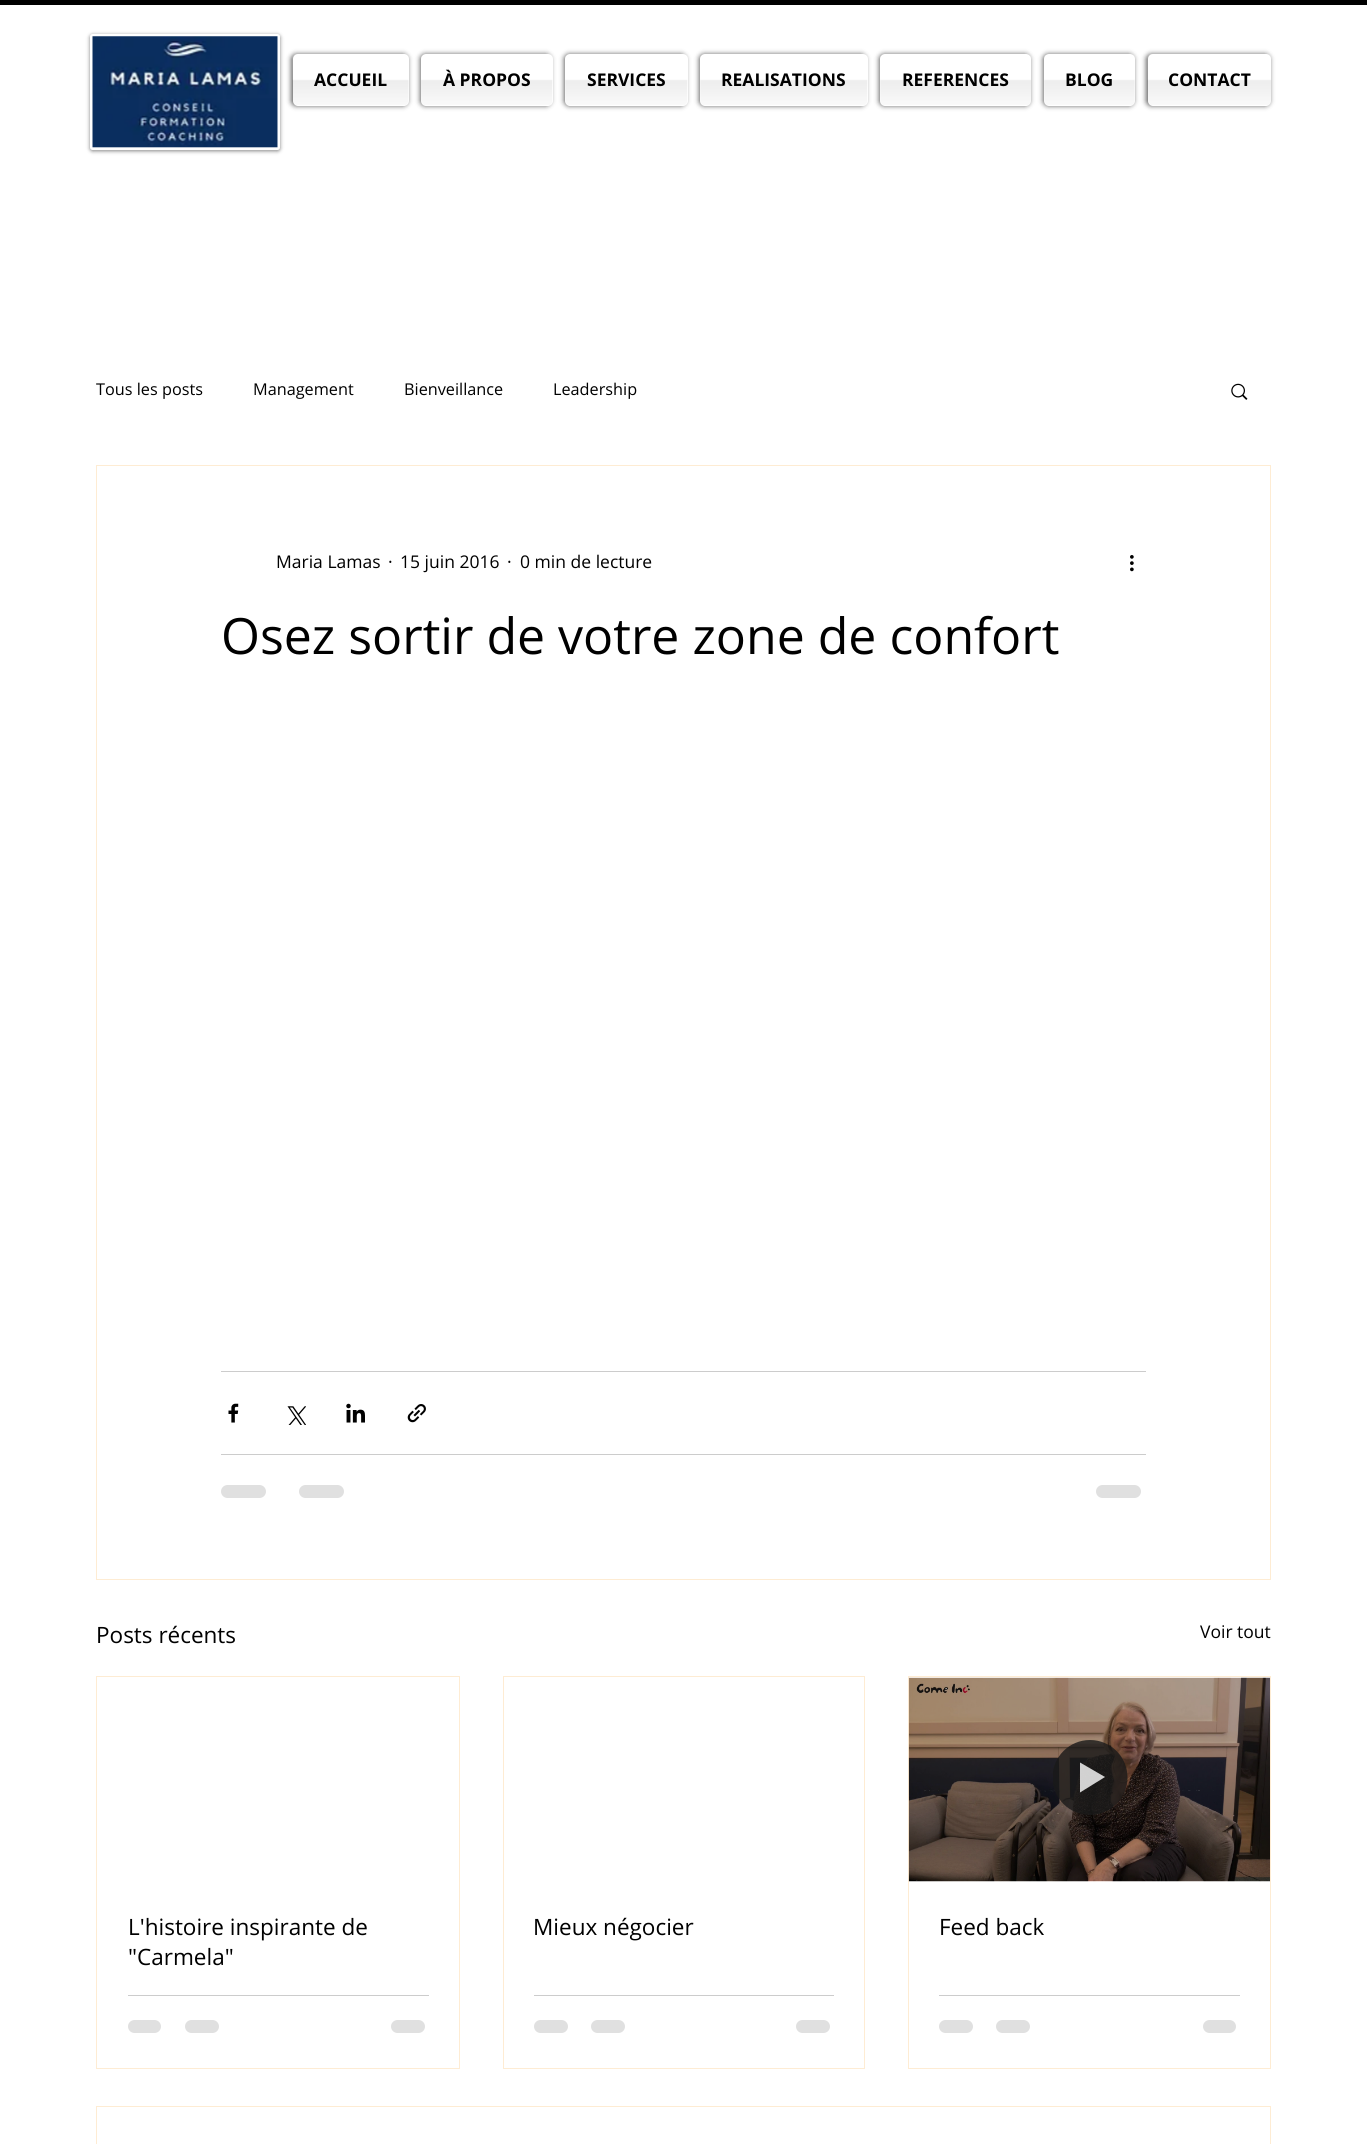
import math
import cairo

surface = cairo.ImageSurface(cairo.FORMAT_RGB24, 1367, 2144)
c = cairo.Context(surface)
options = cairo.FontOptions()
options.set_hint_metrics(cairo.HINT_METRICS_OFF)
options.set_hint_style(cairo.HINT_STYLE_NONE)
c.set_font_options(options)
c.set_miter_limit(4)
def C(code):
 c.set_source_rgb(*(v / 255 for v in bytes.fromhex(code[-6:])))
def F(family, size, italic, bold):
 c.select_font_face(family, cairo.FONT_SLANT_ITALIC if italic else cairo.FONT_SLANT_NORMAL, cairo.FONT_WEIGHT_BOLD if bold else cairo.FONT_WEIGHT_NORMAL)
 c.set_font_size(size)
def T(x, y, s):
 c.move_to(x, y)
 c.show_text(s)
def R(x, y, w, h):
 c.rectangle(x, y, w, h)
 c.fill()
def Q(x, y, w, h, r):
 c.new_sub_path()
 for i, (u, v) in enumerate([(x + w - r, y + h - r), (x + r, y + h - r), (x + r, y + r), (x + w - r, y + r)]):
  c.arc(u, v, r, i * math.pi / 2, (i + 1) * math.pi / 2)
 c.close_path()
def S(x, y, w, h, r, blur, alpha):
 c.push_group_with_content(cairo.CONTENT_ALPHA)
 c.set_operator(cairo.OPERATOR_SOURCE)
 for i in range(15, -16, -2):
  e = blur * i / 6
  if min(w, h) + 2 * e > 0:
   c.set_source_rgba(0, 0, 0, alpha * math.erfc((i - 1) / 8.5) / 2)
   Q(x - e, y - e, w + 2 * e, h + 2 * e, max(0, min(r + e + blur * .6, min(w, h) / 2 + e)))
   c.fill()
 c.mask(c.pop_group())
def I(path, x, y, w, h):
 c.save()
 c.set_source_surface(cairo.ImageSurface.create_from_png(path), x, y)
 c.rectangle(x, y, w, h)
 c.fill()
 c.restore()
C('ffffff')
c.paint()
C('000000')
R(0,0,1367,5)
C('000000')
S(90,35,190,116,2.5,2,.5)
Q(91.5,35.5,187,113,1)
C('ffffff')
c.set_line_width(3)
c.stroke()
I('1.png',92,36,186,112)
C('000000')
S(291,54,117,52,5,2.5,.6)
C('ffffff')
Q(293,54,116,52,5)
c.fill()
I('2.png',292,54,117,51)
F('Open Sans',17.5,0,1)
C('000000')
T(314,86,'ACCUEIL')
C('000000')
S(420,54,131,52,5,2.5,.6)
C('ffffff')
Q(421,54,132,52,5)
c.fill()
I('3.png',421,56,132,49)
C('000000')
T(443,86,'À PROPOS')
C('000000')
S(564,54,122,52,5,2.5,.6)
C('ffffff')
Q(565,54,123,52,5)
c.fill()
I('4.png',565,56,123,49)
C('000000')
T(587,86,'SERVICES')
C('000000')
S(699,54,167,52,5,2.5,.6)
C('ffffff')
Q(700,54,168,52,5)
c.fill()
I('5.png',700,56,168,49)
C('000000')
T(721,86,'REALISATIONS')
C('000000')
S(879,54,151,52,5,2.5,.6)
C('ffffff')
Q(880,54,151,52,5)
c.fill()
I('6.png',880,56,151,49)
C('000000')
T(902,86,'REFERENCES')
C('000000')
S(1043,54,91,52,5,2.5,.6)
C('ffffff')
Q(1044,54,91,52,5)
c.fill()
I('7.png',1044,55,91,50)
C('000000')
T(1065,86,'BLOG')
C('000000')
S(1146,54,124,52,5,2.5,.6)
C('ffffff')
Q(1148,54,123,52,5)
c.fill()
I('8.png',1147,54,124,51)
C('000000')
T(1168,86,'CONTACT')
F('Open Sans',16.25,0,0)
T(96,395,'Tous les posts')
T(253,395,'Management')
T(404,395,'Bienveillance')
T(553,395,'Leadership')
I('9.png',1231,383,17,17)
c.rectangle(96.5,465.5,1174,1114)
C('feecd3')
c.set_line_width(1)
c.stroke()
F('Open Sans',17.5,0,0)
C('000000')
T(276,568,'Maria Lamas')
T(388,568,'·')
T(400,568,'15 juin 2016')
T(507,568,'·')
T(520,568,'0 min de lecture')
I('10.png',1130,555,4,17)
F('Open Sans',50,0,0)
T(221,654,'Osez sortir de votre zone de confort')
C('cccccc')
R(221,1371,925,1)
I('11.png',228,1403,11,20)
I('12.png',287,1406,19,19)
I('13.png',346,1403,19,20)
I('14.png',407,1404,19,19)
R(221,1454,925,1)
C('e0e0e0')
Q(221,1485,45,13,6.5)
c.fill()
Q(299,1485,45,13,6.5)
c.fill()
Q(1096,1485,45,13,6.5)
c.fill()
F('Open Sans',22.5,0,0)
C('000000')
T(96,1643,'Posts récents')
F('Open Sans',17.5,0,0)
T(1200,1638,'Voir tout')
c.rectangle(96.5,1676.5,363,392)
C('feecd3')
c.stroke()
F('Open Sans',22.5,0,0)
C('000000')
T(128,1935,'L\'histoire inspirante de')
T(128,1965,'"Carmela"')
C('cccccc')
R(128,1995,301,1)
C('e0e0e0')
Q(128,2020,33,13,6.5)
c.fill()
Q(185,2020,34,13,6.5)
c.fill()
Q(391,2020,34,13,6.5)
c.fill()
c.rectangle(503.5,1676.5,361,392)
C('feecd3')
c.stroke()
C('000000')
T(533,1935,'Mieux négocier')
C('cccccc')
R(534,1995,300,1)
C('e0e0e0')
Q(534,2020,34,13,6.5)
c.fill()
Q(591,2020,34,13,6.5)
c.fill()
Q(796,2020,34,13,6.5)
c.fill()
c.rectangle(908.5,1676.5,362,392)
C('feecd3')
c.stroke()
I('15.png',908,1677,362,205)
c.save()
c.rectangle(1053,1740,75,75)
c.clip()
c.set_source_rgba(0.102,0.102,0.102,0.8)
c.arc(1090,1777.5,37.5,0,2 * math.pi)
c.fill()
c.restore()
c.set_source_rgba(1,1,1,0.8)
c.new_path()
c.move_to(1080,1762.5)
c.line_to(1080,1792.5)
c.line_to(1105,1777)
c.close_path()
c.fill()
C('000000')
T(939,1935,'Feed back')
C('cccccc')
R(939,1995,301,1)
C('e0e0e0')
Q(939,2020,34,13,6.5)
c.fill()
Q(996,2020,34,13,6.5)
c.fill()
Q(1203,2020,33,13,6.5)
c.fill()
c.rectangle(96.5,2106.5,1174,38)
C('feecd3')
c.stroke()
surface.write_to_png('o.png')
